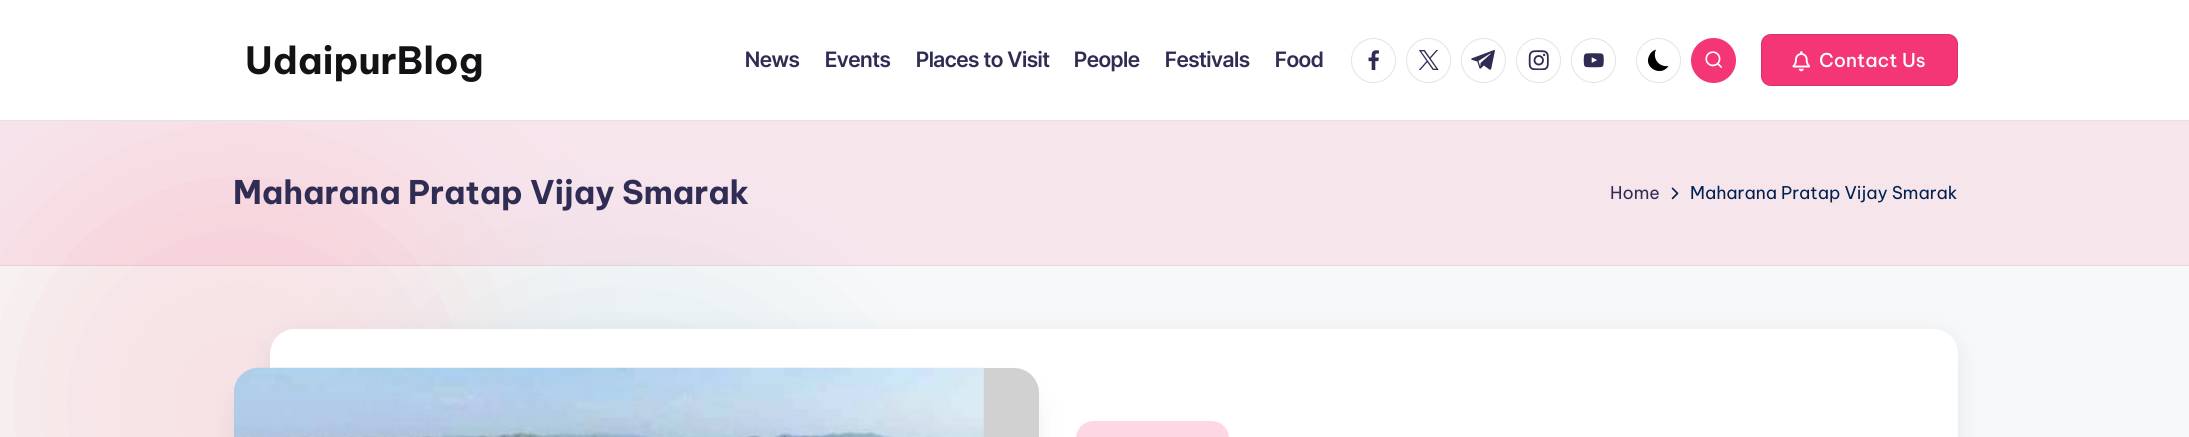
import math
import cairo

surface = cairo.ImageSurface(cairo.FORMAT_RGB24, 2189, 437)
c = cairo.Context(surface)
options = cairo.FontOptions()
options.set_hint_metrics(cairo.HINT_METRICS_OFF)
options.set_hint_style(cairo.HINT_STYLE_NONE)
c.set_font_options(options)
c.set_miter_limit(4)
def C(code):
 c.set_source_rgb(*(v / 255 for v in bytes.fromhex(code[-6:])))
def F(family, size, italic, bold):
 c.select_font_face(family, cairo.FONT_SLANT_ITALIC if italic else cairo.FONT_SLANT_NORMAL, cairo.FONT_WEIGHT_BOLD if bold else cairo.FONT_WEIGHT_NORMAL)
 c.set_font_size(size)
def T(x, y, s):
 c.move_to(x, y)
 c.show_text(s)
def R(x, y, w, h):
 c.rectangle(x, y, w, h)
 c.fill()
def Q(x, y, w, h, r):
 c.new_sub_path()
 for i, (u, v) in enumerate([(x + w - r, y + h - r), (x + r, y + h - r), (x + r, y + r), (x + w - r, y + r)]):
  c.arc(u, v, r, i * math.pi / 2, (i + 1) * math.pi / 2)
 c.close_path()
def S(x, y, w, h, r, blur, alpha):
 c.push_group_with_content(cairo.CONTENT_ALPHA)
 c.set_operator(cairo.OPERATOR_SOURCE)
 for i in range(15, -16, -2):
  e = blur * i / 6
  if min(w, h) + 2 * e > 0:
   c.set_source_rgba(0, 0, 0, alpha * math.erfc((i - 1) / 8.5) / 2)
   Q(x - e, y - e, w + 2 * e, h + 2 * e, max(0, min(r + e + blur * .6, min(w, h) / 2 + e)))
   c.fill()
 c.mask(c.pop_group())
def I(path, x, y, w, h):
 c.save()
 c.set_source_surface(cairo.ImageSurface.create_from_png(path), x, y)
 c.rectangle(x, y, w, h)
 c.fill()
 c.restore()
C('f7f8f9')
c.paint()
C('f7e3e6')
S(0,163,480,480,240,80,1)
C('04868b')
S(380,300,480,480,240,80,.1)
C('454360')
S(270,335,1688,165,25,12.5,.1)
C('ffffff')
Q(270,329,1688,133,25)
c.fill()
C('fdd7e4')
Q(1076,421,153,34,17.5)
c.fill()
C('000000')
S(249,403,775,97,10,17.5,.18)
C('d1d1d1')
Q(234,368,805,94,25)
c.fill()
I('1.png',233,367,751,70)
C('ffffff')
R(0,0,2189,120)
C('e3e3e3')
R(0,120,2189,1)
F('Be Vietnam Pro',37.5,0,1)
C('131315')
T(245,74,'UdaipurBlog')
F('Inter Tight SemiBold',21.25,0,0)
C('302d55')
T(745,67,'News')
T(825,67,'Events')
T(916,67,'Places to Visit')
T(1074,67,'People')
T(1165,67,'Festivals')
T(1275,67,'Food')
c.new_path()
c.arc(1373.5,60.5,22,0,2 * math.pi)
C('e3e3e3')
c.set_line_width(1)
c.stroke()
I('2.png',1368,50,11,20)
c.arc(1428.5,60.5,22,0,2 * math.pi)
c.stroke()
I('3.png',1418,50,21,20)
c.arc(1483.5,60.5,22,0,2 * math.pi)
c.stroke()
I('4.png',1471,50,24,20)
c.arc(1538.5,60.5,22,0,2 * math.pi)
c.stroke()
I('5.png',1528,50,21,20)
c.arc(1593.5,60.5,22,0,2 * math.pi)
c.stroke()
I('6.png',1583,53,21,15)
c.arc(1658.5,60.5,22,0,2 * math.pi)
c.stroke()
C('000000')
c.new_path()
c.move_to(1668.5,66)
c.curve_to(1659,67.5,1652,58.5,1656,49.5)
c.curve_to(1653,50.5,1650.5,52.5,1649.5,55)
c.curve_to(1642.5,67.5,1661,77.5,1668.5,66)
c.close_path()
c.fill()
C('f43676')
c.arc(1713.5,60.5,22.5,0,2 * math.pi)
c.fill()
I('7.png',1705,51,18,17)
Q(1761,34,197,52,10)
c.fill()
Q(1761.5,34.5,196,51,9.5)
c.set_source_rgba(0,0,0,0.12)
c.stroke()
I('8.png',1792,51,19,21)
F('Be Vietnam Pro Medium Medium',19,0,0)
C('ffffff')
T(1819,67,'Contact Us')
c.set_source_rgba(0.957,0.212,0.463,0.1)
R(0,121,2189,145)
c.set_source_rgba(0,0,0,0.06)
R(0,265,2189,1)
F('Be Vietnam Pro',32.5,0,1)
C('302d55')
T(233,204,'Maharana Pratap Vijay Smarak')
F('Be Vietnam Pro',17.5,0,0)
T(1610,199,'Home')
I('9.png',1671,187,8,13)
C('002050')
T(1690,199,'Maharana Pratap Vijay Smarak')
surface.write_to_png('o.png')
